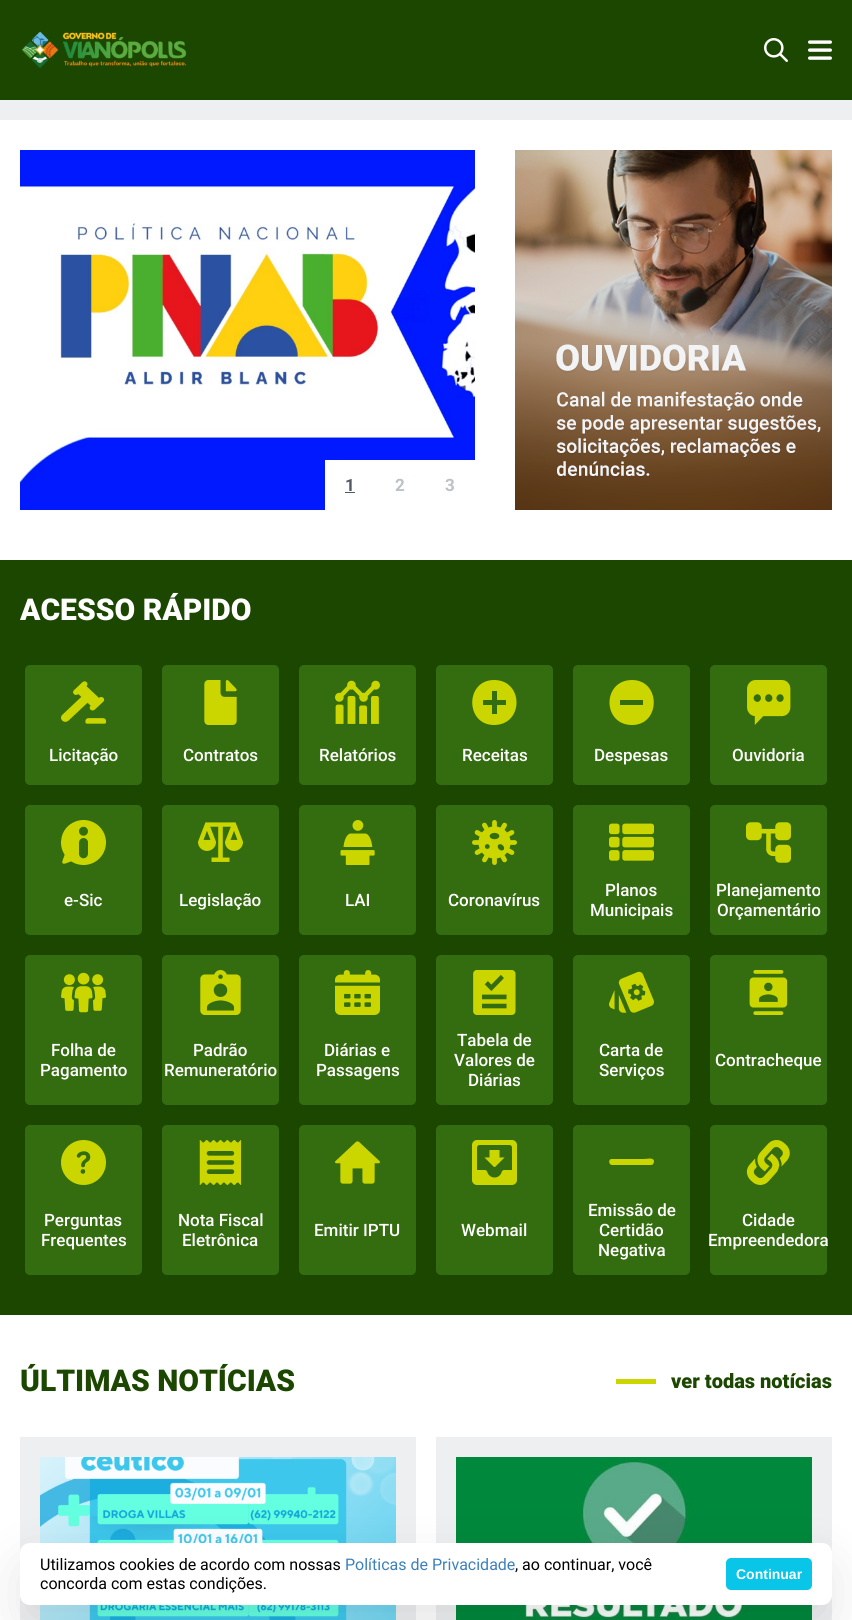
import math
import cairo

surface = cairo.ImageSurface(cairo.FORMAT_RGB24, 852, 1620)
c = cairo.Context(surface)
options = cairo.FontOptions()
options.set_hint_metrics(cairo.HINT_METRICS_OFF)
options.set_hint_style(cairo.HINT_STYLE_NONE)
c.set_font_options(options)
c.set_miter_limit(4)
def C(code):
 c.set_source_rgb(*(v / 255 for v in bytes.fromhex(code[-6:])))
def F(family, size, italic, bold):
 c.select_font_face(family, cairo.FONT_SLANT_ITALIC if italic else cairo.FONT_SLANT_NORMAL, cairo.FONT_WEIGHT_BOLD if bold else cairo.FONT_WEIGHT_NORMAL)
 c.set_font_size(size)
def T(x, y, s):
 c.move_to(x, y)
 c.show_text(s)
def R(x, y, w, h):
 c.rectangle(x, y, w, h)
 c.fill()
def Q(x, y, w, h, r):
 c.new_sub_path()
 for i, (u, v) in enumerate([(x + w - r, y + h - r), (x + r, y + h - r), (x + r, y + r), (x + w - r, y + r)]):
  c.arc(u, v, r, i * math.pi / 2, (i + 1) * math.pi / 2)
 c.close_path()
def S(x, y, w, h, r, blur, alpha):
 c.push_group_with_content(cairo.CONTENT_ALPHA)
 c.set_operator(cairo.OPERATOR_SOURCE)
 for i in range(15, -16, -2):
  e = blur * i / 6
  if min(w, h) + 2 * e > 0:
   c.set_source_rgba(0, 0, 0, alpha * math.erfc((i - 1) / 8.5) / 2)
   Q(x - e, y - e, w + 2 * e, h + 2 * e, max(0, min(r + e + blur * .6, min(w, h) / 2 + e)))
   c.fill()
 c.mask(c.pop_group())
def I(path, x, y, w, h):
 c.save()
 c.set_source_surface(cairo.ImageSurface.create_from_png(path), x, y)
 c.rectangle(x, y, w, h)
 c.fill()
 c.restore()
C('ffffff')
c.paint()
C('1b4700')
R(0,0,852,100)
I('1.png',22,31,165,37)
I('2.png',764,38,24,24)
I('3.png',808,40,24,20)
C('eeeff1')
R(0,100,852,20)
I('4.png',20,150,455,360)
C('ffffff')
R(325,460,150,50)
F('Roboto',17,0,1)
C('515866')
T(345,491,'1')
R(345,492,10,1)
C('bbc2c7')
T(395,491,'2')
T(445,491,'3')
I('5.png',515,150,317,360)
C('1b4700')
R(0,560,852,755)
F('Roboto Black',30,0,0)
C('ffffff')
T(20,620,'ACESSO RÁPIDO')
C('346d10')
Q(25,665,117,120,5)
c.fill()
I('6.png',61,681,45,43)
F('Roboto Medium',17,0,0)
C('ffffff')
T(49,761,'Licitação')
C('346d10')
Q(162,665,117,120,5)
c.fill()
I('7.png',204,680,33,45)
C('ffffff')
T(183,761,'Contratos')
C('346d10')
Q(299,665,117,120,5)
c.fill()
I('8.png',335,680,45,44)
C('ffffff')
T(319,761,'Relatórios')
C('346d10')
Q(436,665,117,120,5)
c.fill()
C('cbd600')
c.new_path()
c.move_to(494,680)
c.curve_to(524,680,524,725,494,725)
c.curve_to(465,725,465,680,494,680)
c.close_path()
c.move_to(506,705)
c.line_to(506,700)
c.line_to(497,700)
c.line_to(497,691)
c.line_to(492,691)
c.line_to(492,700)
c.line_to(483,700)
c.line_to(483,705)
c.line_to(492,705)
c.line_to(492,714)
c.line_to(497,714)
c.line_to(497,705)
c.close_path()
c.fill()
C('ffffff')
T(462,761,'Receitas')
C('346d10')
Q(573,665,117,120,5)
c.fill()
C('cbd600')
c.new_path()
c.move_to(632,680)
c.curve_to(661,680,661,725,632,725)
c.curve_to(602,725,602,680,632,680)
c.close_path()
c.move_to(643,705)
c.line_to(643,700)
c.line_to(620,700)
c.line_to(620,705)
c.close_path()
c.fill()
C('ffffff')
T(594,761,'Despesas')
C('346d10')
Q(710,665,117,120,5)
c.fill()
I('9.png',747,680,44,45)
C('ffffff')
T(732,761,'Ouvidoria')
C('346d10')
Q(25,805,117,130,5)
c.fill()
I('10.png',61,820,45,45)
C('ffffff')
T(64,906,'e-Sic')
C('346d10')
Q(162,805,117,130,5)
c.fill()
I('11.png',198,822,45,40)
C('ffffff')
T(179,906,'Legislação')
C('346d10')
Q(299,805,117,130,5)
c.fill()
I('12.png',340,820,35,45)
C('ffffff')
T(345,906,'LAI')
C('346d10')
Q(436,805,117,130,5)
c.fill()
I('13.png',472,820,45,45)
C('ffffff')
T(448,906,'Coronavírus')
C('346d10')
Q(573,805,117,130,5)
c.fill()
I('14.png',609,823,45,38)
C('ffffff')
T(605,896,'Planos')
T(590,916,'Municipais')
C('346d10')
Q(710,805,117,130,5)
c.fill()
I('15.png',746,822,45,41)
C('ffffff')
T(716,896,'Planejamento')
T(717,916,'Orçamentário')
C('346d10')
Q(25,955,117,150,5)
c.fill()
I('16.png',61,972,45,41)
C('ffffff')
T(51,1056,'Folha de')
T(40,1076,'Pagamento')
C('346d10')
Q(162,955,117,150,5)
c.fill()
I('17.png',200,970,41,45)
C('ffffff')
T(193,1056,'Padrão')
T(164,1076,'Remuneratório')
C('346d10')
Q(299,955,117,150,5)
c.fill()
I('18.png',335,970,45,45)
C('ffffff')
T(324,1056,'Diárias e')
T(316,1076,'Passagens')
C('346d10')
Q(436,955,117,150,5)
c.fill()
I('19.png',473,970,43,45)
C('ffffff')
T(457,1046,'Tabela de')
T(454,1066,'Valores de')
T(468,1086,'Diárias')
C('346d10')
Q(573,955,117,150,5)
c.fill()
I('20.png',609,971,45,42)
C('ffffff')
T(599,1056,'Carta de')
T(599,1076,'Serviços')
C('346d10')
Q(710,955,117,150,5)
c.fill()
I('21.png',749,970,39,45)
C('ffffff')
T(715,1066,'Contracheque')
C('346d10')
Q(25,1125,117,150,5)
c.fill()
I('22.png',61,1140,45,45)
C('ffffff')
T(44,1226,'Perguntas')
T(41,1246,'Frequentes')
C('346d10')
Q(162,1125,117,150,5)
c.fill()
I('23.png',199,1140,43,45)
C('ffffff')
T(178,1226,'Nota Fiscal')
T(182,1246,'Eletrônica')
C('346d10')
Q(299,1125,117,150,5)
c.fill()
I('24.png',335,1141,45,43)
C('ffffff')
T(314,1236,'Emitir IPTU')
C('346d10')
Q(436,1125,117,150,5)
c.fill()
I('25.png',472,1140,45,45)
C('ffffff')
T(461,1236,'Webmail')
C('346d10')
Q(573,1125,117,150,5)
c.fill()
C('cbd600')
c.new_path()
c.move_to(651,1165)
c.curve_to(653,1165,654,1163,654,1161)
c.curve_to(653,1157,647,1159,644,1159)
c.line_to(611,1159)
c.curve_to(608,1160,609,1165,612,1165)
c.close_path()
c.fill()
C('ffffff')
T(588,1216,'Emissão de')
T(599,1236,'Certidão')
T(598,1256,'Negativa')
C('346d10')
Q(710,1125,117,150,5)
c.fill()
I('26.png',746,1140,44,45)
C('ffffff')
T(742,1226,'Cidade')
T(708,1246,'Empreendedora')
F('Roboto Black',30,0,0)
C('1b4700')
T(20,1391,'ÚLTIMAS NOTÍCIAS')
C('cbd600')
R(616,1379,40,5)
F('Roboto Black',20,0,0)
C('1b4700')
T(671,1388,'ver todas notícias')
C('eeeff1')
R(20,1437,396,183)
I('27.png',40,1457,356,163)
R(436,1437,396,183)
I('28.png',456,1457,356,163)
C('000000')
S(20,1563,812,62,10,25,.1)
C('ffffff')
Q(20,1543,812,62,10)
c.fill()
F('Roboto',16,0,0)
C('000000')
T(40,1570,'Utilizamos cookies de acordo com nossas')
C('3c80bc')
T(345,1570,'Políticas de Privacidade')
C('000000')
T(515,1570,', ao continuar, você')
T(40,1589,'concorda com estas condições.')
C('09c5e7')
Q(726,1558,86,32,5)
c.fill()
F('Liberation Sans',14,0,1)
C('ffffff')
T(736,1579,'Continuar')
surface.write_to_png('o.png')
